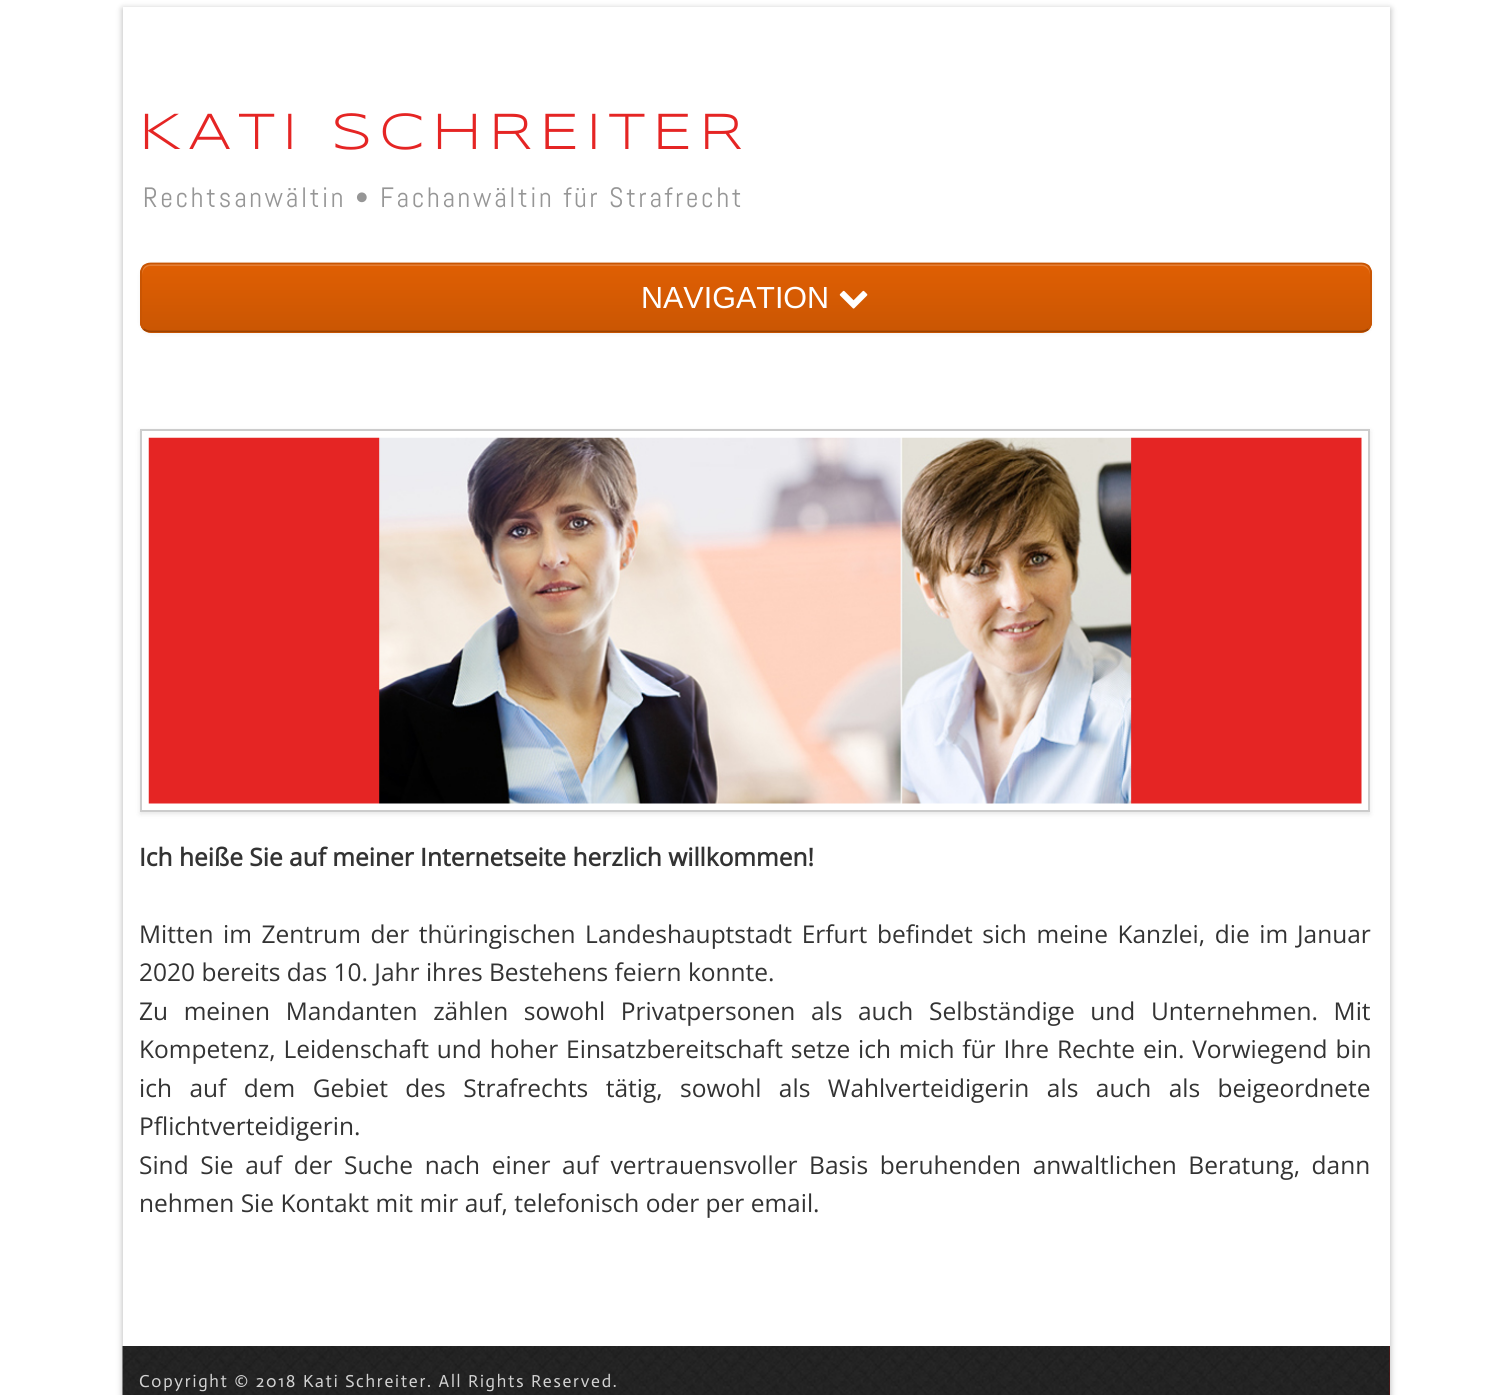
import math
import cairo

surface = cairo.ImageSurface(cairo.FORMAT_RGB24, 1510, 1395)
c = cairo.Context(surface)
options = cairo.FontOptions()
options.set_hint_metrics(cairo.HINT_METRICS_OFF)
options.set_hint_style(cairo.HINT_STYLE_NONE)
c.set_font_options(options)
c.set_miter_limit(4)
def C(code):
 c.set_source_rgb(*(v / 255 for v in bytes.fromhex(code[-6:])))
def F(family, size, italic, bold):
 c.select_font_face(family, cairo.FONT_SLANT_ITALIC if italic else cairo.FONT_SLANT_NORMAL, cairo.FONT_WEIGHT_BOLD if bold else cairo.FONT_WEIGHT_NORMAL)
 c.set_font_size(size)
def T(x, y, s):
 c.move_to(x, y)
 c.show_text(s)
def L(x, y, s, letter, word):
 c.move_to(x, y)
 for ch in s:
  c.show_text(ch)
  c.rel_move_to(letter + word * (ch == ' '), 0)
def R(x, y, w, h):
 c.rectangle(x, y, w, h)
 c.fill()
def Q(x, y, w, h, r):
 c.new_sub_path()
 for i, (u, v) in enumerate([(x + w - r, y + h - r), (x + r, y + h - r), (x + r, y + r), (x + w - r, y + r)]):
  c.arc(u, v, r, i * math.pi / 2, (i + 1) * math.pi / 2)
 c.close_path()
def S(x, y, w, h, r, blur, alpha):
 c.push_group_with_content(cairo.CONTENT_ALPHA)
 c.set_operator(cairo.OPERATOR_SOURCE)
 for i in range(15, -16, -2):
  e = blur * i / 6
  if min(w, h) + 2 * e > 0:
   c.set_source_rgba(0, 0, 0, alpha * math.erfc((i - 1) / 8.5) / 2)
   Q(x - e, y - e, w + 2 * e, h + 2 * e, max(0, min(r + e + blur * .6, min(w, h) / 2 + e)))
   c.fill()
 c.mask(c.pop_group())
def I(path, x, y, w, h):
 c.save()
 c.set_source_surface(cairo.ImageSurface.create_from_png(path), x, y)
 c.rectangle(x, y, w, h)
 c.fill()
 c.restore()
C('ffffff')
c.paint()
C('000000')
S(123,9,1267,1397,0,3.5,.3)
C('ffffff')
R(123,7,1267,1339)
F('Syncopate',52.5,0,0)
C('e52524')
L(139,149,'KATI SCHREITER',7,0)
F('Abel',28,0,0)
C('969696')
L(143,207,'Rechtsanwältin • Fachanwältin für Strafrecht',2.6,0)
C('000000')
S(140,264,1232,70,11,2,.05)
C('e05f03')
Q(140,263,1232,70,11)
c.fill()
c.save()
Q(140,263,1232,70,11)
c.clip()
gradient = cairo.LinearGradient(756,264,756,331)
gradient.add_color_stop_rgba(0,0.878,0.373,0.012,1)
gradient.add_color_stop_rgba(1,0.792,0.337,0.012,1)
c.set_source(gradient)
R(140,264,1232,67)
c.restore()
C('e67f35')
c.new_path()
c.move_to(150,266)
c.line_to(1362,266)
c.curve_to(1366,266,1370,270,1370,275)
c.line_to(1370,273)
c.curve_to(1370,268,1366,264,1361,264)
c.line_to(151,264)
c.curve_to(146,264,142,268,142,273)
c.line_to(142,275)
c.curve_to(142,270,146,266,150,266)
c.close_path()
c.fill()
c.new_path()
c.move_to(1368.5,329)
c.curve_to(1366.5,330.5,1364,331.5,1361.5,331.5)
c.line_to(150.5,331.5)
c.curve_to(148,331.5,145.5,330.5,143.5,329)
C('9d4302')
c.set_line_width(1.8)
c.stroke()
c.new_path()
c.move_to(143.5,329)
c.curve_to(142,327,141,324.5,141,322)
c.line_to(141,273)
c.curve_to(141,270.5,142,268,143.5,266)
c.curve_to(145.5,264.5,148,263.5,150.5,263.5)
c.line_to(1361.5,263.5)
c.curve_to(1364,263.5,1366.5,264.5,1368.5,266)
c.curve_to(1370,268,1371,270.5,1371,273)
c.line_to(1371,322)
c.curve_to(1371,324.5,1370,327,1368.5,329)
C('c75503')
c.stroke()
F('Liberation Sans',30.5,0,0)
C('ffffff')
T(641,308,'NAVIGATION')
I('1.png',839,290,29,19)
c.save()
c.set_fill_rule(cairo.FILL_RULE_EVEN_ODD)
c.new_path()
c.move_to(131,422)
c.line_to(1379,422)
c.line_to(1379,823)
c.line_to(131,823)
c.close_path()
c.move_to(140,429)
c.line_to(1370,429)
c.line_to(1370,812)
c.line_to(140,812)
c.close_path()
c.clip()
C('000000')
S(140,431,1230,383,0,2.5,.1)
c.restore()
c.rectangle(141,430,1228,381)
C('cccccc')
c.set_line_width(2)
c.stroke()
I('2.png',148,437,1214,367)
F('Open Sans',24.5,0,1)
C('333333')
T(139,866,'Ich heiße Sie auf meiner Internetseite herzlich willkommen!')
F('Open Sans',24.5,0,0)
L(139,943,'Mitten im Zentrum der thüringischen Landeshauptstadt Erfurt befindet sich meine Kanzlei, die im',0,3.25)
T(1297,943,'Januar')
T(139,981,'2020 bereits das 10. Jahr ihres Bestehens feiern konnte.')
L(139,1020,'Zu meinen Mandanten zählen sowohl Privatpersonen als auch Selbständige und Unternehmen. Mit',0,9.25)
L(139,1058,'Kompetenz, Leidenschaft und hoher Einsatzbereitschaft setze ich mich für Ihre Rechte ein. Vorwiegend bin',0,1.5)
L(139,1097,'ich auf dem Gebiet des Strafrechts tätig, sowohl als Wahlverteidigerin als auch als beigeordnete',0,11.1)
T(139,1135,'Pflichtverteidigerin.')
L(139,1174,'Sind Sie auf der Suche nach einer auf vertrauensvoller Basis beruhenden anwaltlichen Beratung, dann',0,5.25)
T(139,1212,'nehmen Sie Kontakt mit mir auf, telefonisch oder per email.')
C('7a0c0c')
R(1389,1346,1,49)
I('3.png',122,1346,1268,49)
F('Actor',17.5,0,0)
C('d3d3d3')
L(139,1387,'Copyright © 2018 Kati Schreiter. All Rights Reserved.',1.75,0)
surface.write_to_png('o.png')
